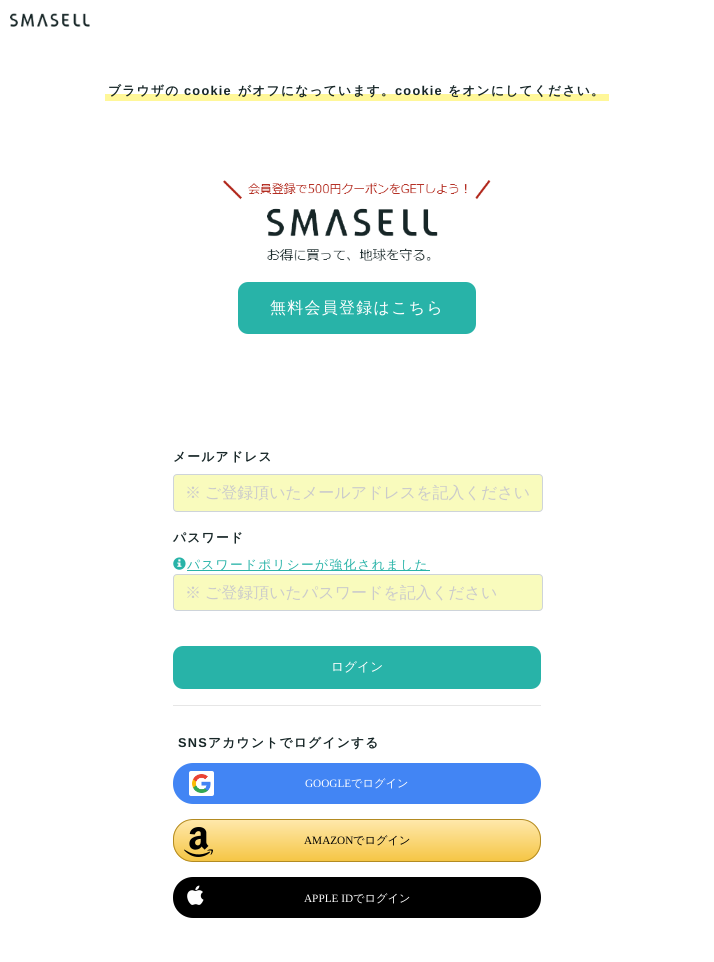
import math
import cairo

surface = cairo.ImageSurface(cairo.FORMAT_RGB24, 714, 962)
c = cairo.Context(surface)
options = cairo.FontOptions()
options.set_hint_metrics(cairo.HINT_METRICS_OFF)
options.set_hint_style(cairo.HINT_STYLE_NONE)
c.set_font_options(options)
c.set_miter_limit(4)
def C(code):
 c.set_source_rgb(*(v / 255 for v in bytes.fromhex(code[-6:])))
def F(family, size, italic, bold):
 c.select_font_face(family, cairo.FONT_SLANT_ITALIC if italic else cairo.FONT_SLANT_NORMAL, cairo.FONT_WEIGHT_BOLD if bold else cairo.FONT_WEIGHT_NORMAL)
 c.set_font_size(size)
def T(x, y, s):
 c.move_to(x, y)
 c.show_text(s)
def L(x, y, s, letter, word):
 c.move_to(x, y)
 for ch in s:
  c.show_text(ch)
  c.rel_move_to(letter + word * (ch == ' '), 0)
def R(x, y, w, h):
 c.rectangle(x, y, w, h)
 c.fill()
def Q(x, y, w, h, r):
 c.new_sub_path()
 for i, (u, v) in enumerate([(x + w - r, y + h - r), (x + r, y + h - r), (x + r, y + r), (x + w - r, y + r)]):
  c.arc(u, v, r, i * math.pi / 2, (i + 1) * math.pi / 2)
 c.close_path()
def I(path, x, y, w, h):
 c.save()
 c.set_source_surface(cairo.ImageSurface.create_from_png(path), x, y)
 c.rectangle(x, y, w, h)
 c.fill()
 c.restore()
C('ffffff')
c.paint()
I('1.png',10,13,80,14)
C('fff799')
R(105,94,504,7)
F('WenQuanYi Zen Hei',12.75,0,1)
C('172627')
L(108,95,'ブラウザの',1.25,0)
F('Liberation Sans',12.75,0,1)
L(184,95,'cookie',1.25,0)
F('WenQuanYi Zen Hei',12.75,0,1)
L(238,95,'がオフになっています。',1.25,0)
F('Liberation Sans',12.75,0,1)
L(395,95,'cookie',1.25,0)
F('WenQuanYi Zen Hei',12.75,0,1)
L(448,95,'をオンにしてください。',1.25,0)
I('2.png',223,180,268,81)
C('28b3a8')
Q(238,282,238,52,10)
c.fill()
F('WenQuanYi Zen Hei Medium',16,0,0)
C('ffffff')
L(270,313,'無料会員登録はこちら',1.25,0)
F('WenQuanYi Zen Hei',12.75,0,1)
C('172627')
L(173,461,'メールアドレス',1.25,0)
C('f9fbbd')
Q(173.5,474.5,369,37,3.5)
c.fill_preserve()
C('ced4da')
c.set_line_width(1)
c.stroke()
F('WenQuanYi Zen Hei Medium',16,0,0)
C('cbcbcb')
L(185,498,'※ ご登録頂いたメールアドレスを記入ください',0,-1)
F('WenQuanYi Zen Hei',12.75,0,1)
C('172627')
L(173,542,'パスワード',1.25,0)
I('3.png',173,557,13,13)
C('28b3a8')
R(187,570,243,1)
F('WenQuanYi Zen Hei Medium',12.75,0,0)
L(187,569,'パスワードポリシーが強化されました',1.25,0)
C('f9fbbd')
Q(173.5,574.5,369,36,3.5)
c.fill_preserve()
C('ced4da')
c.stroke()
F('WenQuanYi Zen Hei Medium',16,0,0)
C('cbcbcb')
L(185,598,'※ ご登録頂いたパスワードを記入ください',0,-1)
C('28b3a8')
Q(173,646,368,43,10)
c.fill()
F('WenQuanYi Zen Hei Medium',12.75,0,0)
C('ffffff')
T(331,671,'ログイン')
C('e6e6e6')
R(173,705,368,1)
F('Liberation Sans',12.75,0,1)
C('172627')
L(178,747,'SNS',1.25,0)
F('WenQuanYi Zen Hei',12.75,0,1)
L(208,747,'アカウントでログインする',1.25,0)
C('4285f4')
Q(173,763,368,41,20)
c.fill()
C('ffffff')
Q(189,771,25,25,2)
c.fill()
I('4.png',192,774,19,19)
F('Liberation Serif',11.25,0,0)
T(305,787,'GOOGLE')
F('WenQuanYi Zen Hei Medium',11.25,0,0)
T(351,787,'でログイン')
c.save()
Q(173,819,368,43,20)
c.clip()
gradient = cairo.LinearGradient(357,820,357,861)
gradient.add_color_stop_rgba(0,1,0.91,0.671,1)
gradient.add_color_stop_rgba(1,0.961,0.776,0.271,1)
c.set_source(gradient)
R(173,820,368,41)
c.restore()
Q(173.5,819.5,367,42,19.5)
C('b38b22')
c.stroke()
I('5.png',184,827,29,30)
F('Liberation Serif',11.25,0,0)
C('000000')
T(304,844,'AMAZON')
F('WenQuanYi Zen Hei Medium',11.25,0,0)
T(353,844,'でログイン')
Q(173,877,368,41,20)
c.fill()
I('6.png',187,885,17,20)
F('Liberation Serif',11.25,0,0)
C('ffffff')
T(304,902,'APPLE ID')
F('WenQuanYi Zen Hei Medium',11.25,0,0)
T(353,902,'でログイン')
surface.write_to_png('o.png')
